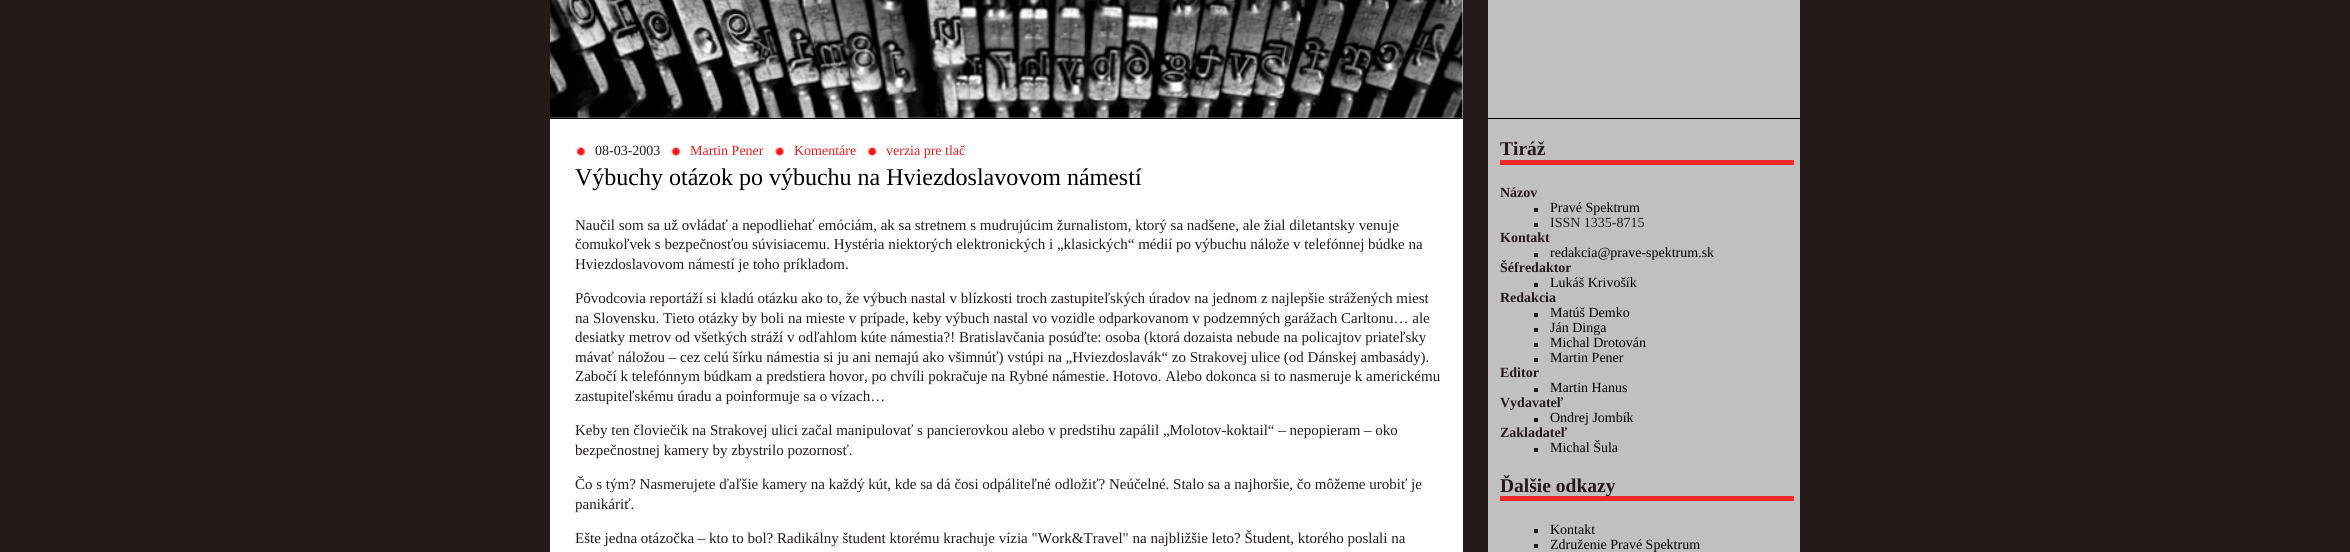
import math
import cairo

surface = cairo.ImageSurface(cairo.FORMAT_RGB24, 2350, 552)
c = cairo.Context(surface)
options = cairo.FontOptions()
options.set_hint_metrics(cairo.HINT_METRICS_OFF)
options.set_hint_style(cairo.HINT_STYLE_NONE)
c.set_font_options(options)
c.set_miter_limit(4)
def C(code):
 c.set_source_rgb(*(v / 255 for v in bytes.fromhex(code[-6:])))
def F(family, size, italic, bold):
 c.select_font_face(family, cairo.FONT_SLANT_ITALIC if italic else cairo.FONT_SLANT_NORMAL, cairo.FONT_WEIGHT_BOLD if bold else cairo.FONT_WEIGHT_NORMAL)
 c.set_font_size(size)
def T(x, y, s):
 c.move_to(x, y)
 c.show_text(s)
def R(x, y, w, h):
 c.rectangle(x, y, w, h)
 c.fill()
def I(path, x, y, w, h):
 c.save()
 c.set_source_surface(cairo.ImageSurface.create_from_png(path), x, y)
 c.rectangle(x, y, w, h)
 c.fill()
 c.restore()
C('241a1a')
c.paint()
C('ffffff')
R(550,0,913,118)
C('000000')
R(550,118,913,1)
I('1.png',550,0,913,118)
C('c0c0c0')
R(1488,0,312,118)
C('000000')
R(1488,118,312,1)
C('ffffff')
R(550,119,913,433)
I('2.png',575,147,11,9)
F('Liberation Serif',14,0,0)
C('241a1a')
T(595,155,'08-03-2003')
I('2.png',670,147,11,9)
C('f91a1a')
T(690,155,'Martin Pener')
I('3.png',773,147,11,9)
T(794,155,'Komentáre')
I('4.png',866,147,11,9)
T(886,155,'verzia pre tlač')
F('Liberation Serif',24,0,0)
C('000000')
T(575,185,'Výbuchy otázok po výbuchu na Hviezdoslavovom námestí')
F('Liberation Serif',15,0,0)
C('241a1a')
T(575,230,'Naučil som sa už ovládať a nepodliehať emóciám, ak sa stretnem s mudrujúcim žurnalistom, ktorý sa nadšene, ale žial diletantsky venuje')
T(575,249,'čomukoľvek s bezpečnosťou súvisiacemu. Hystéria niektorých elektronických i „klasických“ médií po výbuchu nálože v telefónnej búdke na')
T(575,269,'Hviezdoslavovom námestí je toho príkladom.')
T(575,303,'Pôvodcovia reportáží si kladú otázku ako to, že výbuch nastal v blízkosti troch zastupiteľských úradov na jednom z najlepšie strážených miest')
T(575,323,'na Slovensku. Tieto otázky by boli na mieste v prípade, keby výbuch nastal vo vozidle odparkovanom v podzemných garážach Carltonu… ale')
T(575,342,'desiatky metrov od všetkých stráží v odľahlom kúte námestia?! Bratislavčania posúďte: osoba (ktorá dozaista nebude na policajtov priateľsky')
T(575,362,'mávať náložou – cez celú šírku námestia si ju ani nemajú ako všimnúť) vstúpi na „Hviezdoslavák“ zo Strakovej ulice (od Dánskej ambasády).')
T(575,381,'Zabočí k telefónnym búdkam a predstiera hovor, po chvíli pokračuje na Rybné námestie. Hotovo. Alebo dokonca si to nasmeruje k americkému')
T(575,401,'zastupiteľskému úradu a poinformuje sa o vízach…')
T(575,435,'Keby ten človiečik na Strakovej ulici začal manipulovať s pancierovkou alebo v predstihu zapálil „Molotov-koktail“ – nepopieram – oko')
T(575,455,'bezpečnostnej kamery by zbystrilo pozornosť.')
T(575,489,'Čo s tým? Nasmerujete ďaľšie kamery na každý kút, kde sa dá čosi odpáliteľné odložiť? Neúčelné. Stalo sa a najhoršie, čo môžeme urobiť je')
T(575,509,'panikáriť.')
T(575,543,'Ešte jedna otázočka – kto to bol? Radikálny študent ktorému krachuje vízia "Work&Travel" na najbližšie leto? Študent, ktorého poslali na')
C('c0c0c0')
R(1488,119,312,433)
C('f32929')
R(1500,160,294,5)
F('Liberation Serif',19.5,0,1)
C('241a1a')
T(1500,155,'Tiráž')
F('Liberation Serif',14,0,1)
T(1500,197,'Názov')
R(1534,208,4,4)
F('Liberation Serif',14,0,0)
C('000000')
T(1550,212,'Pravé Spektrum')
C('241a1a')
R(1534,223,4,4)
T(1550,227,'ISSN 1335-8715')
F('Liberation Serif',14,0,1)
T(1500,242,'Kontakt')
R(1534,253,4,4)
F('Liberation Serif',14,0,0)
C('000000')
T(1550,257,'redakcia@prave-spektrum.sk')
F('Liberation Serif',14,0,1)
C('241a1a')
T(1500,272,'Šéfredaktor')
R(1534,283,4,4)
F('Liberation Serif',14,0,0)
C('000000')
T(1550,287,'Lukáš Krivošík')
F('Liberation Serif',14,0,1)
C('241a1a')
T(1500,302,'Redakcia')
R(1534,313,4,4)
F('Liberation Serif',14,0,0)
C('000000')
T(1550,317,'Matúš Demko')
C('241a1a')
R(1534,328,4,4)
C('000000')
T(1550,332,'Ján Dinga')
C('241a1a')
R(1534,343,4,4)
C('000000')
T(1550,347,'Michal Drotován')
C('241a1a')
R(1534,358,4,4)
C('000000')
T(1550,362,'Martin Pener')
F('Liberation Serif',14,0,1)
C('241a1a')
T(1500,377,'Editor')
R(1534,388,4,4)
F('Liberation Serif',14,0,0)
C('000000')
T(1550,392,'Martin Hanus')
F('Liberation Serif',14,0,1)
C('241a1a')
T(1500,407,'Vydavateľ')
R(1534,418,4,4)
F('Liberation Serif',14,0,0)
C('000000')
T(1550,422,'Ondrej Jombík')
F('Liberation Serif',14,0,1)
C('241a1a')
T(1500,437,'Zakladateľ')
R(1534,448,4,4)
F('Liberation Serif',14,0,0)
C('000000')
T(1550,452,'Michal Šula')
C('f32929')
R(1500,496,294,5)
F('Liberation Serif',19.5,0,1)
C('241a1a')
T(1500,492,'Ďalšie odkazy')
R(1534,529,4,4)
F('Liberation Serif',14,0,0)
C('000000')
T(1550,534,'Kontakt')
C('241a1a')
R(1534,544,4,4)
C('000000')
T(1550,549,'Združenie Pravé Spektrum')
surface.write_to_png('o.png')
